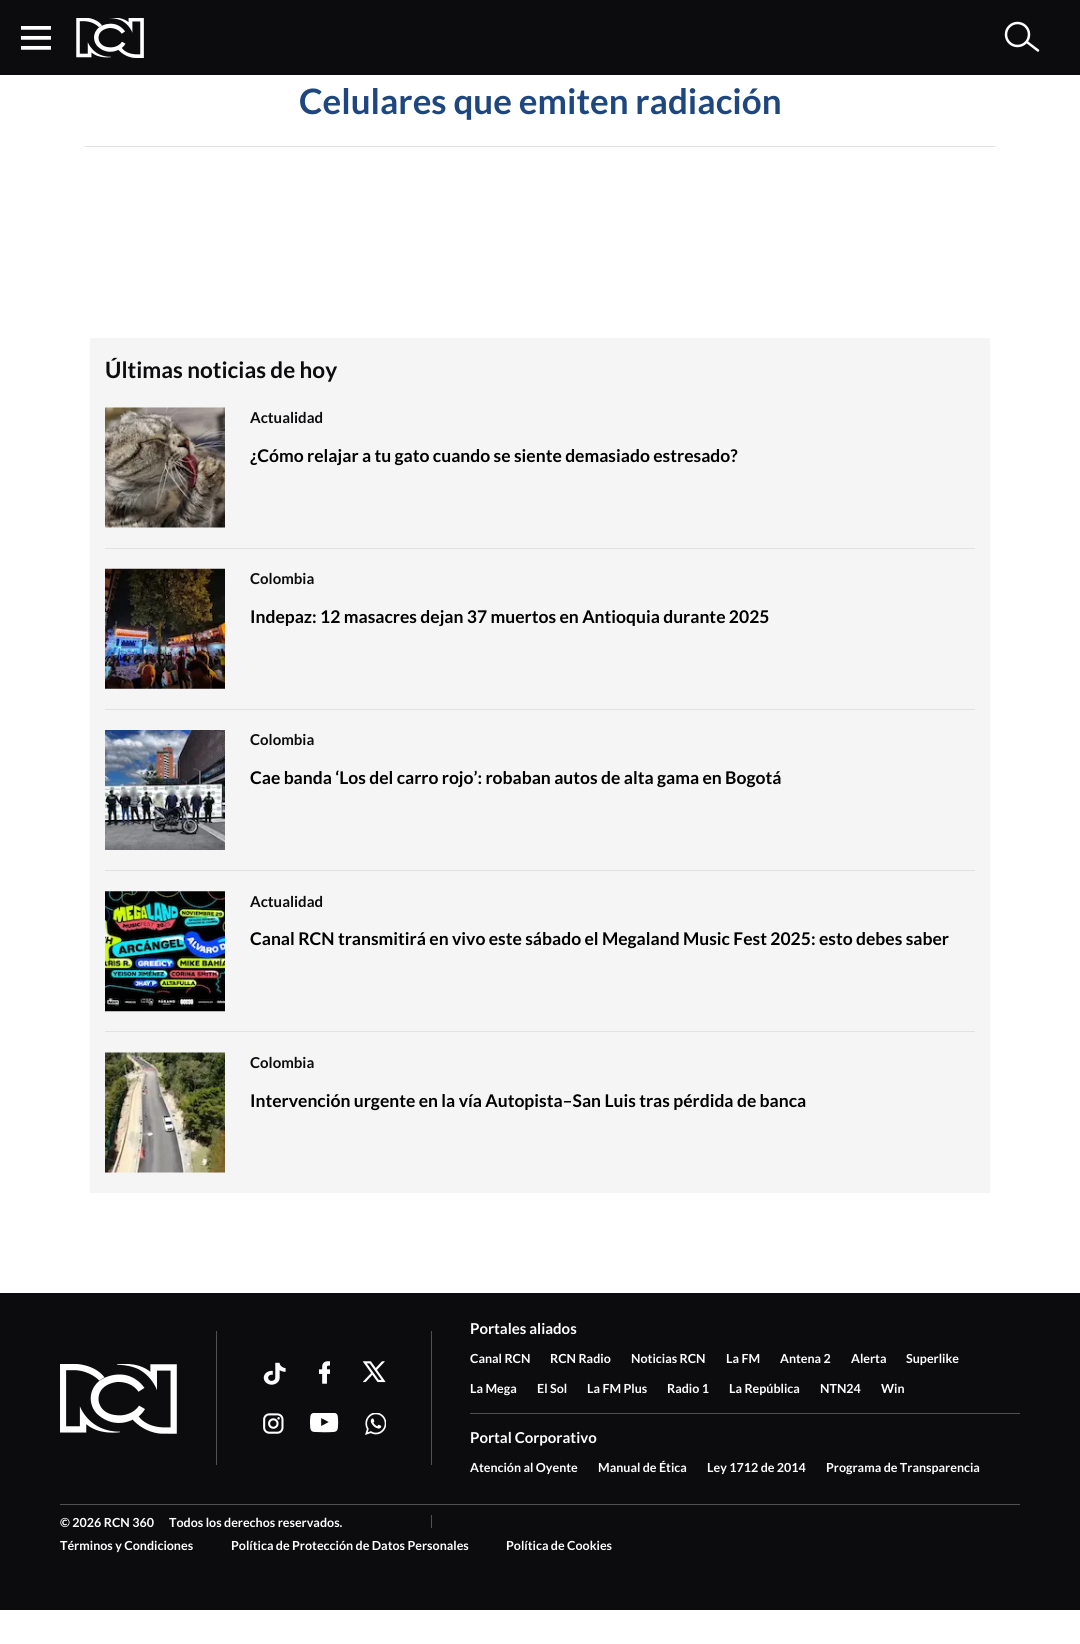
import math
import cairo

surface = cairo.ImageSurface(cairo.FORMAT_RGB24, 1080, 1644)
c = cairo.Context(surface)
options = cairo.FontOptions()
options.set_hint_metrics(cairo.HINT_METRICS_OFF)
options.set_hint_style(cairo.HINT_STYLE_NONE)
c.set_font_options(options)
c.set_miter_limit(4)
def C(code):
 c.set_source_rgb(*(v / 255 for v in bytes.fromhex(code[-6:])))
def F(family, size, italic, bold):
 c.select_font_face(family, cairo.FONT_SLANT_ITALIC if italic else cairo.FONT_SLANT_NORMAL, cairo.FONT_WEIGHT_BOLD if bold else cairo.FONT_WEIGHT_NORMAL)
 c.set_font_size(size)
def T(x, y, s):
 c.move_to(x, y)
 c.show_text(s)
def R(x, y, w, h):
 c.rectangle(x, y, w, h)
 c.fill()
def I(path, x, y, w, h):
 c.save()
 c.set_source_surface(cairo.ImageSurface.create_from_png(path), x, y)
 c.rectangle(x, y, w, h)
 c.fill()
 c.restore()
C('ffffff')
c.paint()
C('0c0c0e')
R(0,0,1080,75)
I('1.png',20,26,31,24)
I('2.png',76,18,68,40)
c.arc(1017.5,34.5,11.5,0,2 * math.pi)
C('ffffff')
c.set_line_width(2.5)
c.stroke()
c.new_path()
c.move_to(1027.5,42.5)
c.line_to(1038,50.5)
c.set_line_cap(cairo.LINE_CAP_ROUND)
c.stroke()
F('Lato',35,0,1)
C('1f477f')
T(299,114,'Celulares que emiten radiación')
C('e0e0e0')
R(85,146,910,1)
C('f5f5f5')
R(90,338,900,855)
F('Lato',22.5,0,1)
C('0c0c0e')
T(105,378,'Últimas noticias de hoy')
C('e2e2e2')
R(105,548,870,1)
I('3.png',105,407,120,121)
F('Lato',15,0,1)
C('0c0c0e')
T(250,423,'Actualidad')
F('Lato',17.5,0,1)
C('000000')
T(250,462,'¿Cómo relajar a tu gato cuando se siente demasiado estresado?')
C('e2e2e2')
R(105,709,870,1)
I('4.png',105,568,120,121)
F('Lato',15,0,1)
C('0c0c0e')
T(250,584,'Colombia')
F('Lato',17.5,0,1)
C('000000')
T(250,623,'Indepaz: 12 masacres dejan 37 muertos en Antioquia durante 2025')
C('e2e2e2')
R(105,870,870,1)
I('5.png',105,730,120,120)
F('Lato',15,0,1)
C('0c0c0e')
T(250,745,'Colombia')
F('Lato',17.5,0,1)
C('000000')
T(250,784,'Cae banda ‘Los del carro rojo’: robaban autos de alta gama en Bogotá')
C('e2e2e2')
R(105,1031,870,1)
I('6.png',105,891,120,121)
F('Lato',15,0,1)
C('0c0c0e')
T(250,907,'Actualidad')
F('Lato',17.5,0,1)
C('000000')
T(250,945,'Canal RCN transmitirá en vivo este sábado el Megaland Music Fest 2025: esto debes saber')
I('7.png',105,1052,120,121)
F('Lato',15,0,1)
C('0c0c0e')
T(250,1068,'Colombia')
F('Lato',17.5,0,1)
C('000000')
T(250,1107,'Intervención urgente en la vía Autopista–San Luis tras pérdida de banca')
C('0c0c0e')
R(0,1293,1080,317)
I('8.png',60,1364,117,70)
C('505050')
R(431,1331,1,134)
R(216,1331,1,134)
I('9.png',263,1362,23,23)
I('10.png',319,1361,11,23)
I('11.png',363,1361,23,22)
I('12.png',263,1413,21,21)
I('13.png',310,1413,29,20)
I('14.png',365,1413,21,22)
R(470,1413,550,1)
F('Lato',15,0,1)
C('ffffff')
T(470,1334,'Portales aliados')
F('Lato',12.5,0,1)
T(470,1363,'Canal RCN')
T(550,1363,'RCN Radio')
T(631,1363,'Noticias RCN')
T(726,1363,'La FM')
T(780,1363,'Antena 2')
T(851,1363,'Alerta')
T(906,1363,'Superlike')
T(470,1393,'La Mega')
T(537,1393,'El Sol')
T(587,1393,'La FM Plus')
T(667,1393,'Radio 1')
T(729,1393,'La República')
T(820,1393,'NTN24')
T(881,1393,'Win')
F('Lato',15,0,1)
T(470,1443,'Portal Corporativo')
F('Lato',12.5,0,1)
T(470,1472,'Atención al Oyente')
T(598,1472,'Manual de Ética')
T(707,1472,'Ley 1712 de 2014')
T(826,1472,'Programa de Transparencia')
C('505050')
R(60,1504,960,1)
R(431,1515,1,13)
C('ffffff')
T(60,1527,'© 2026 RCN 360')
T(169,1527,'Todos los derechos reservados.')
T(60,1550,'Términos y Condiciones')
T(231,1550,'Política de Protección de Datos Personales')
T(506,1550,'Política de Cookies')
surface.write_to_png('o.png')
